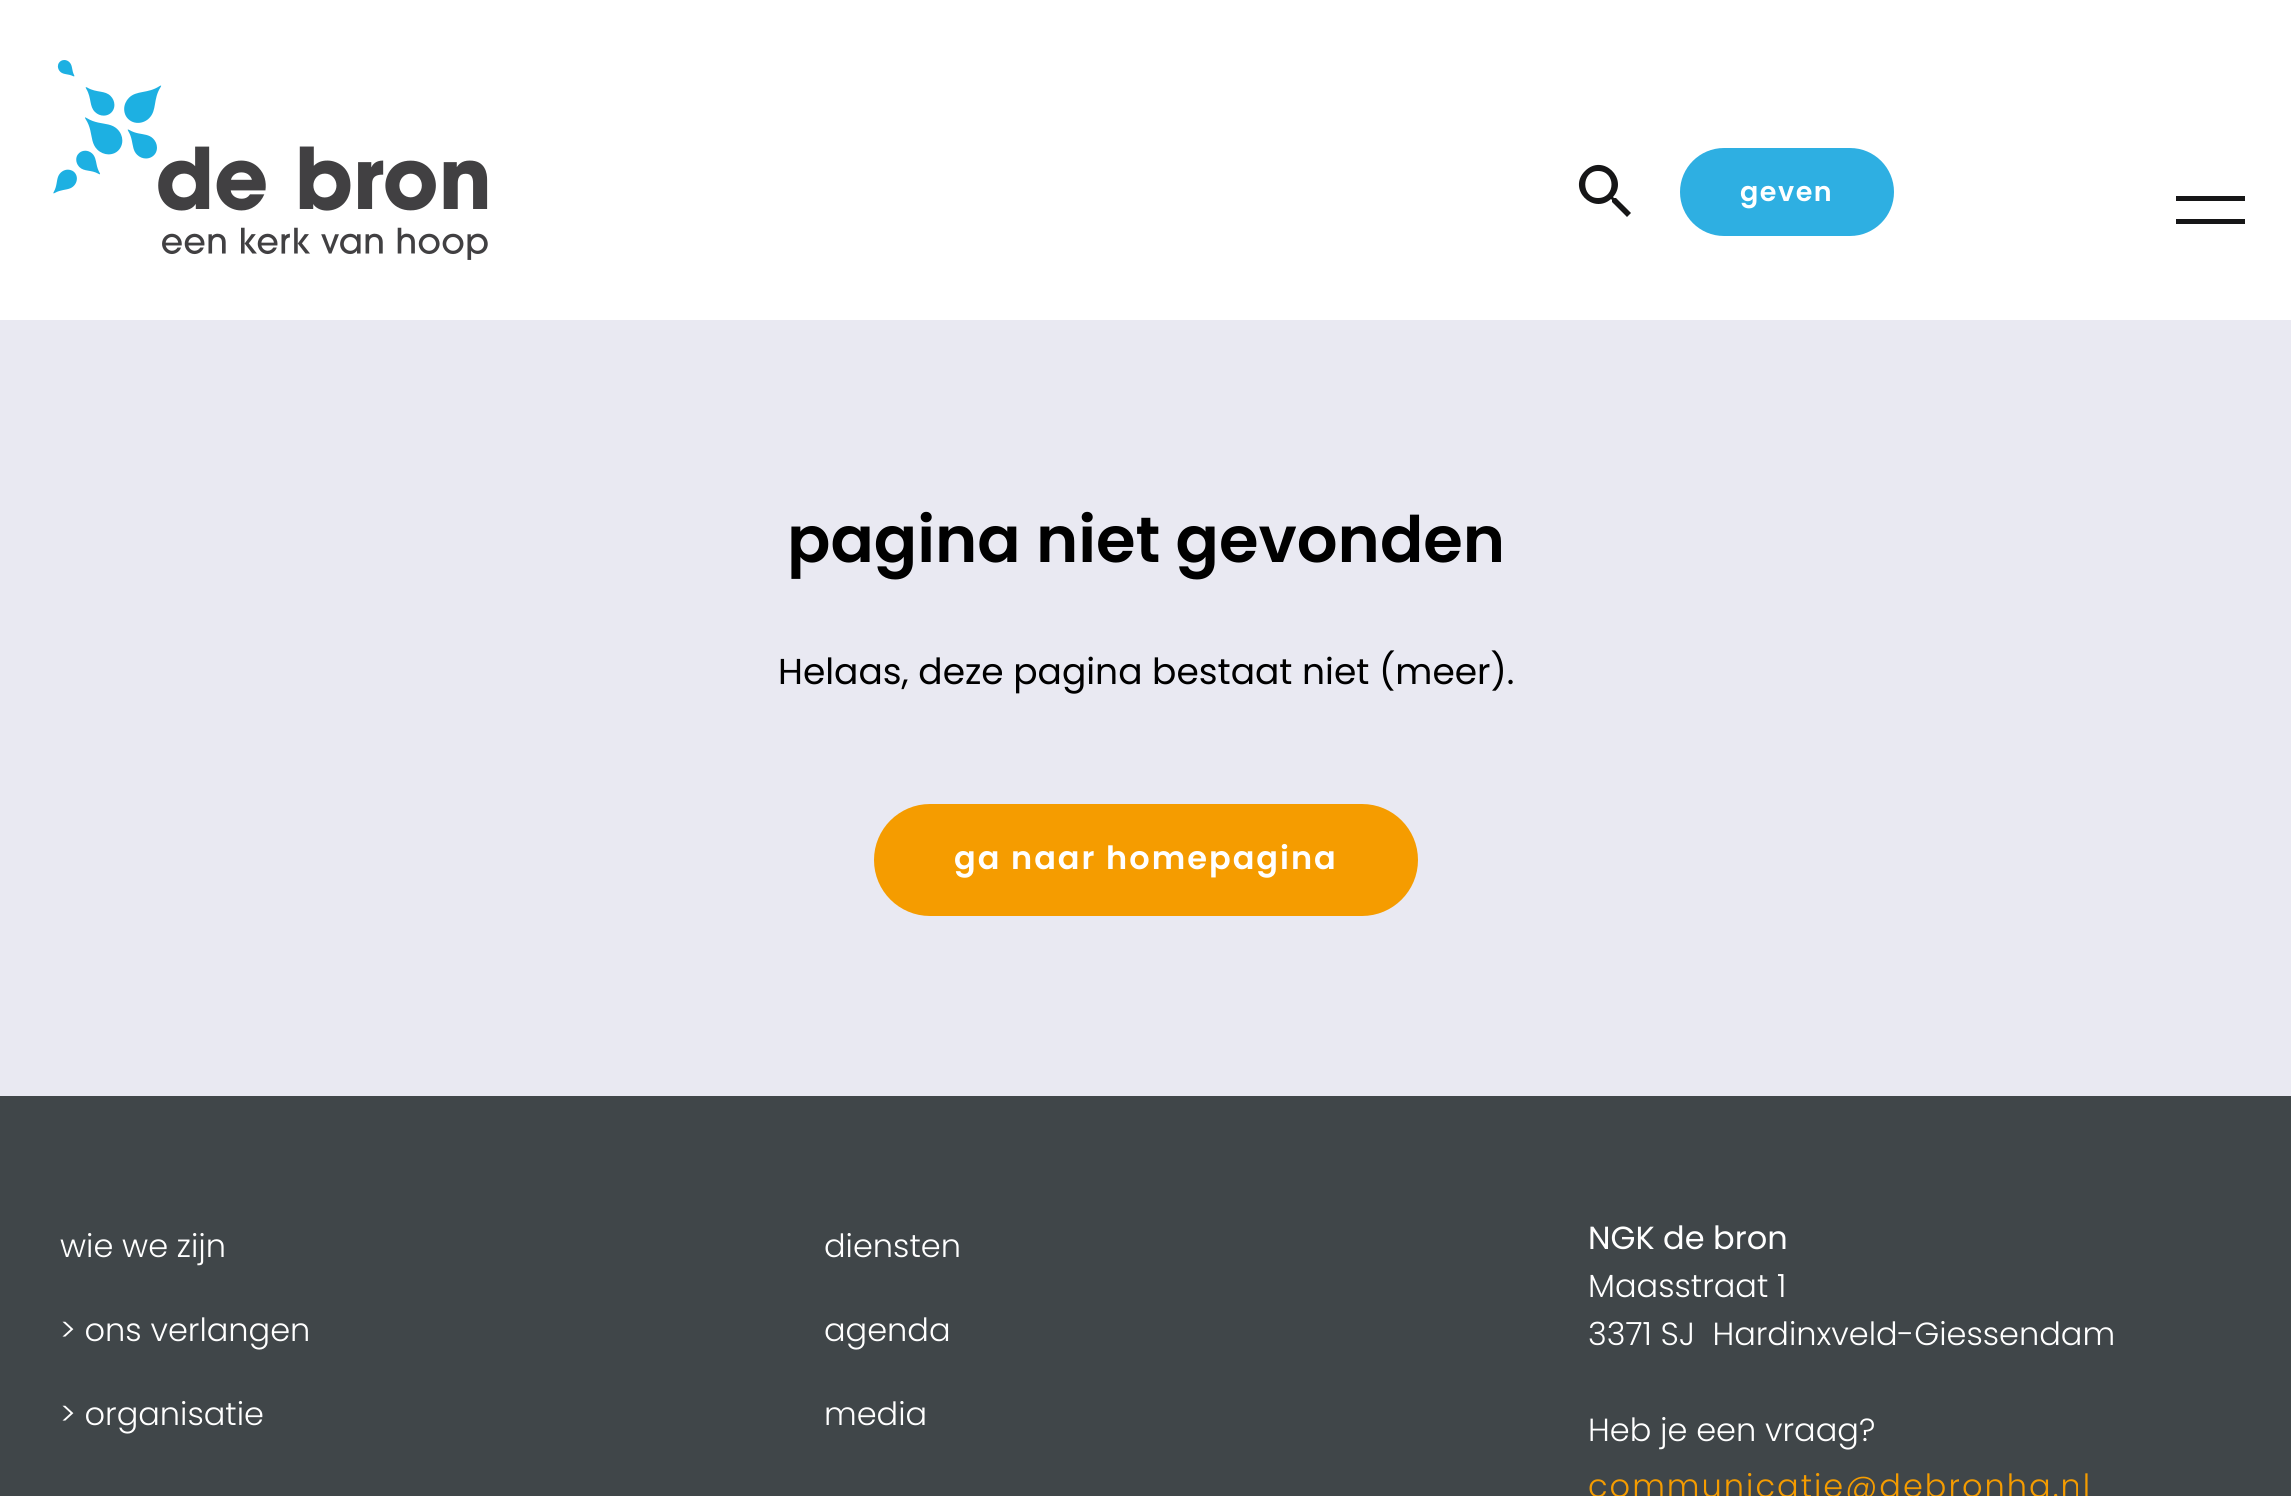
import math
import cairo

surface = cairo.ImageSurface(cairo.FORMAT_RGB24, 2291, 1496)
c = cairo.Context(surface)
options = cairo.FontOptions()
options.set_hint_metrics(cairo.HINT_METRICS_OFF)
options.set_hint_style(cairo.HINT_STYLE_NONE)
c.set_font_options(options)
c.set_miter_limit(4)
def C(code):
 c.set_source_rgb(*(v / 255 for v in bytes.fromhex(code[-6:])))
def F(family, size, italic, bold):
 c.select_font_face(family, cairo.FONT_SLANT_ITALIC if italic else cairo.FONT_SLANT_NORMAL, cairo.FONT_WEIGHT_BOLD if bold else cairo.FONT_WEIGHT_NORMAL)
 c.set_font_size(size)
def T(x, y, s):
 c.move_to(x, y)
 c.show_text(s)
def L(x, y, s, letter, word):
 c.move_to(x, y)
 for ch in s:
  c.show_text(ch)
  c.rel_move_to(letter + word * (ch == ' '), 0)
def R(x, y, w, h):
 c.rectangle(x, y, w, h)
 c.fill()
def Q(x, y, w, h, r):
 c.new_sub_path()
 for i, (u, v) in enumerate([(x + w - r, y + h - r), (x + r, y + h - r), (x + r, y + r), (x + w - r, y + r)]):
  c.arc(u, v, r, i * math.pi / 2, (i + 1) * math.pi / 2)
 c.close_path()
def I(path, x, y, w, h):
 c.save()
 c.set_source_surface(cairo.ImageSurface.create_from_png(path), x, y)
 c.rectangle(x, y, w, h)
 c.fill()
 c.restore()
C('ffffff')
c.paint()
I('1.png',53,60,435,200)
C('161617')
c.new_path()
c.move_to(1616,198)
c.line_to(1614,198)
c.line_to(1613,197)
c.curve_to(1629,179,1603,153,1585,171)
c.curve_to(1567,189,1593,215,1611,199)
c.line_to(1612,200)
c.line_to(1612,202)
c.line_to(1627,217)
c.line_to(1631,213)
c.close_path()
c.move_to(1598,198)
c.curve_to(1581,198,1581,171,1598,171)
c.curve_to(1616,171,1616,198,1598,198)
c.close_path()
c.fill()
C('2eafe2')
Q(1680,148,214,88,44)
c.fill()
F('Poppins SemiBold',27,0,0)
C('ffffff')
L(1740,201,'geven',1.5,0)
C('161617')
R(2176,196,69,5)
R(2176,219,69,5)
C('e9e9f2')
R(0,320,2291,776)
F('Poppins SemiBold',64,0,0)
C('000000')
T(787,562,'pagina niet gevonden')
F('Poppins',36,0,0)
T(778,684,'Helaas, deze pagina bestaat niet (meer).')
C('f59c00')
Q(874,804,544,112,56)
c.fill()
F('Poppins SemiBold',32,0,0)
C('ffffff')
L(954,869,'ga naar homepagina',2,0)
C('404649')
R(0,1096,2291,400)
F('Poppins Light',32,0,0)
C('ffffff')
T(60,1257,'wie we zijn')
T(60,1341,'> ons verlangen')
T(60,1425,'> organisatie')
T(824,1257,'diensten')
T(824,1341,'agenda')
T(824,1425,'media')
F('Poppins',32,0,0)
T(1588,1249,'NGK de bron')
F('Poppins Light',32,0,0)
T(1588,1297,'Maasstraat 1')
T(1588,1345,'3371 SJ  Hardinxveld-Giessendam')
T(1588,1441,'Heb je een vraag?')
C('f59c00')
L(1588,1497,'communicatie@debronhg.nl',2,0)
surface.write_to_png('o.png')
